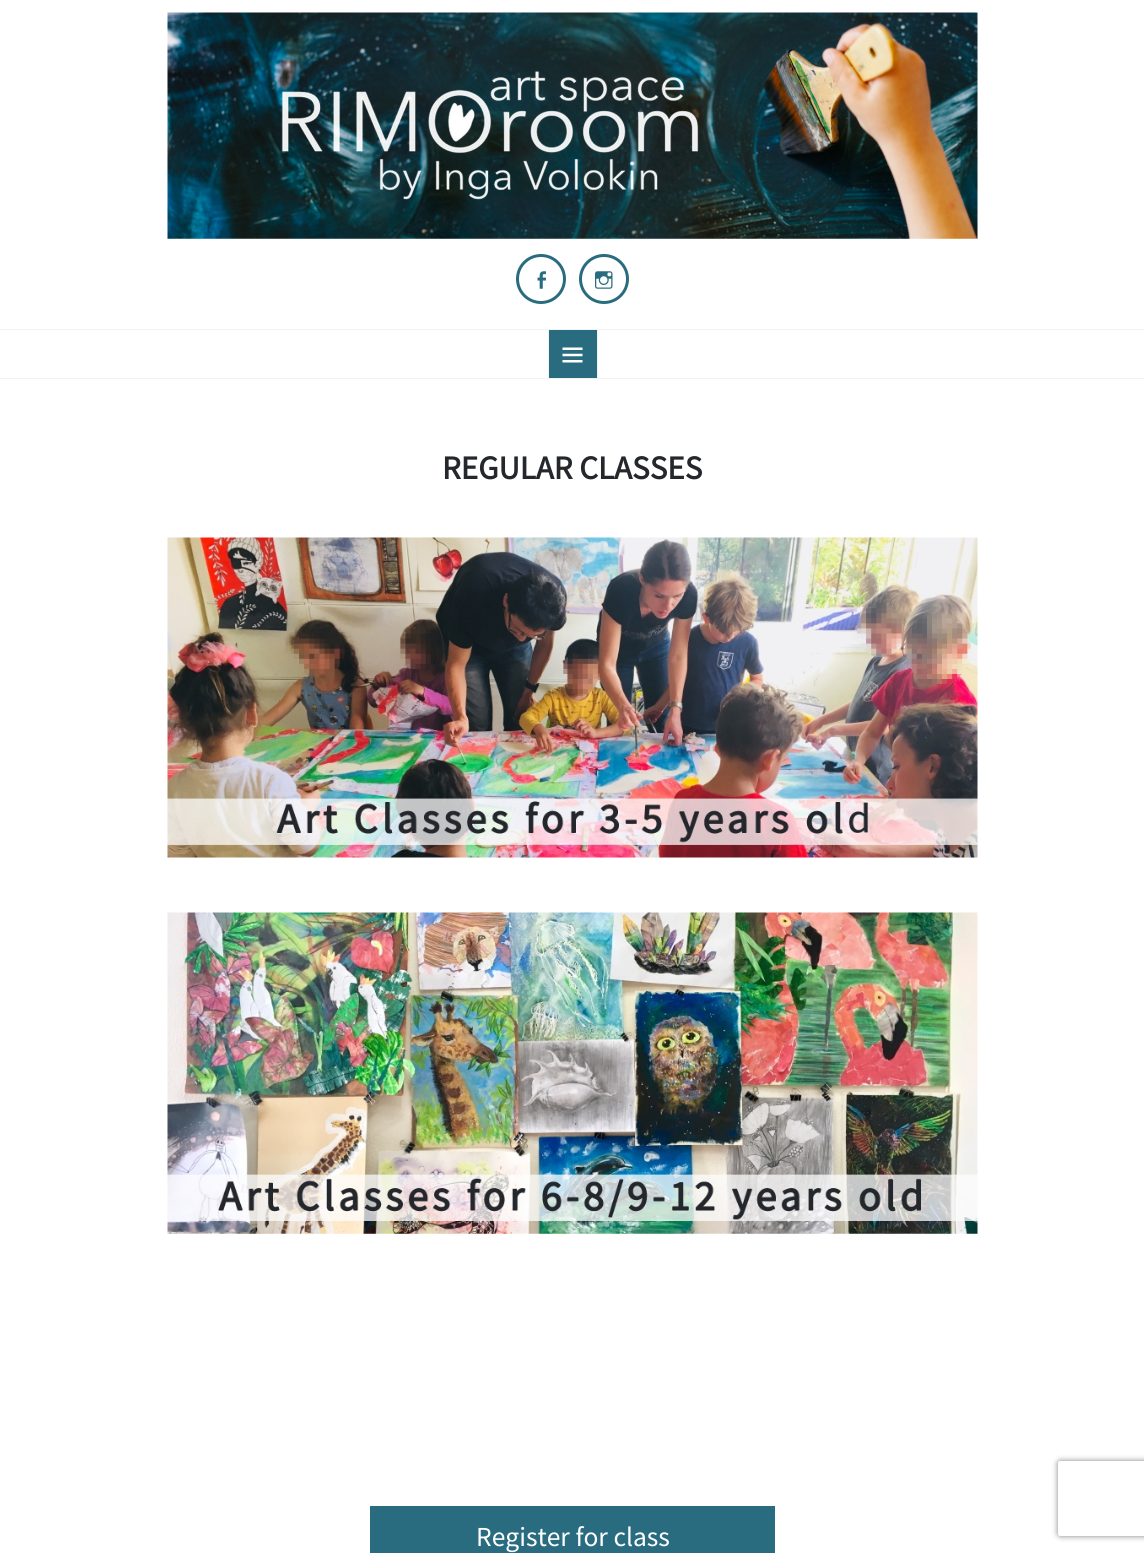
import math
import cairo

surface = cairo.ImageSurface(cairo.FORMAT_RGB24, 1144, 1553)
c = cairo.Context(surface)
options = cairo.FontOptions()
options.set_hint_metrics(cairo.HINT_METRICS_OFF)
options.set_hint_style(cairo.HINT_STYLE_NONE)
c.set_font_options(options)
c.set_miter_limit(4)
def C(code):
 c.set_source_rgb(*(v / 255 for v in bytes.fromhex(code[-6:])))
def F(family, size, italic, bold):
 c.select_font_face(family, cairo.FONT_SLANT_ITALIC if italic else cairo.FONT_SLANT_NORMAL, cairo.FONT_WEIGHT_BOLD if bold else cairo.FONT_WEIGHT_NORMAL)
 c.set_font_size(size)
def T(x, y, s):
 c.move_to(x, y)
 c.show_text(s)
def R(x, y, w, h):
 c.rectangle(x, y, w, h)
 c.fill()
def Q(x, y, w, h, r):
 c.new_sub_path()
 for i, (u, v) in enumerate([(x + w - r, y + h - r), (x + r, y + h - r), (x + r, y + r), (x + w - r, y + r)]):
  c.arc(u, v, r, i * math.pi / 2, (i + 1) * math.pi / 2)
 c.close_path()
def S(x, y, w, h, r, blur, alpha):
 c.push_group_with_content(cairo.CONTENT_ALPHA)
 c.set_operator(cairo.OPERATOR_SOURCE)
 for i in range(15, -16, -2):
  e = blur * i / 6
  if min(w, h) + 2 * e > 0:
   c.set_source_rgba(0, 0, 0, alpha * math.erfc((i - 1) / 8.5) / 2)
   Q(x - e, y - e, w + 2 * e, h + 2 * e, max(0, min(r + e + blur * .6, min(w, h) / 2 + e)))
   c.fill()
 c.mask(c.pop_group())
def I(path, x, y, w, h):
 c.save()
 c.set_source_surface(cairo.ImageSurface.create_from_png(path), x, y)
 c.rectangle(x, y, w, h)
 c.fill()
 c.restore()
C('ffffff')
c.paint()
I('1.png',167,12,811,227)
c.arc(541,279,23.5,0,2 * math.pi)
C('296c80')
c.set_line_width(3)
c.stroke()
I('2.png',537,271,9,18)
c.arc(604,279,23.5,0,2 * math.pi)
c.stroke()
I('3.png',595,271,18,18)
C('f1f2f3')
R(0,329,1144,1)
R(0,378,1144,1)
C('296c80')
c.rectangle(548.5,329.5,49,49)
c.fill_preserve()
C('f1f2f3')
c.set_line_width(1)
c.stroke()
I('4.png',562,347,21,16)
F('Source Sans Pro',33,0,1)
C('24282d')
T(442,479,'REGULAR CLASSES')
I('5.png',167,537,811,321)
I('6.png',167,912,811,322)
C('296c80')
R(370,1506,405,47)
F('Source Sans Pro',27.5,0,0)
C('ffffff')
T(476,1546,'Register for class')
c.save()
c.set_fill_rule(cairo.FILL_RULE_EVEN_ODD)
c.new_path()
c.move_to(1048,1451)
c.line_to(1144,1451)
c.line_to(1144,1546)
c.line_to(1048,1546)
c.close_path()
c.move_to(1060.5,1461)
c.line_to(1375.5,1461)
c.curve_to(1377,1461,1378,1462,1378,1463.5)
c.line_to(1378,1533.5)
c.curve_to(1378,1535,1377,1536,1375.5,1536)
c.line_to(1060.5,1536)
c.curve_to(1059,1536,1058,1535,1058,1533.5)
c.line_to(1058,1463.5)
c.curve_to(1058,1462,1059,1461,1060.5,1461)
c.close_path()
c.clip()
C('808080')
S(1058,1461,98,75,2.5,3,1)
c.restore()
surface.write_to_png('o.png')
